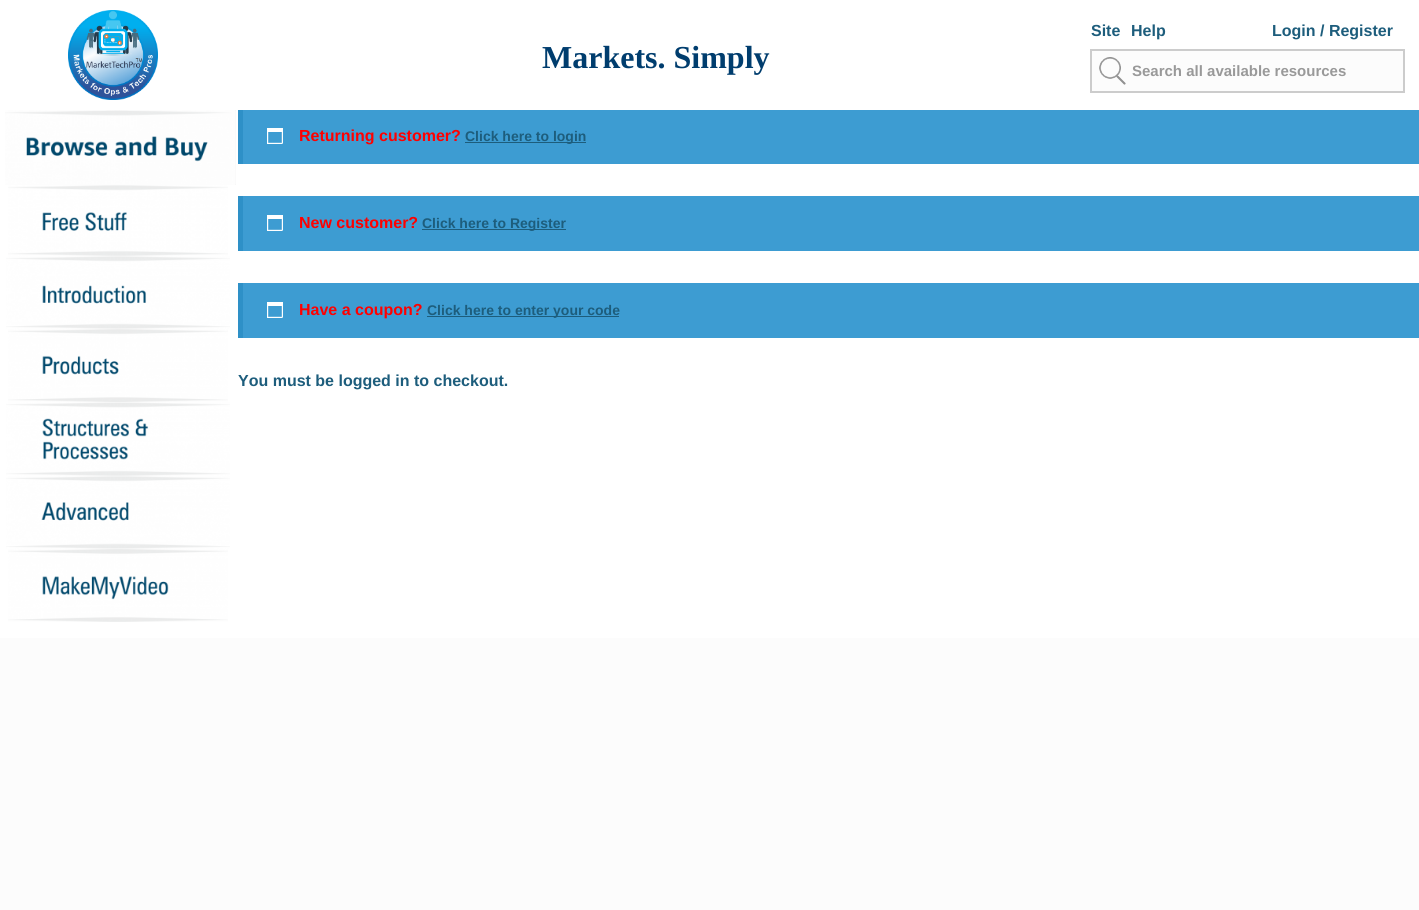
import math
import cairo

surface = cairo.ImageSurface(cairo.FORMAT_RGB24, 1419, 910)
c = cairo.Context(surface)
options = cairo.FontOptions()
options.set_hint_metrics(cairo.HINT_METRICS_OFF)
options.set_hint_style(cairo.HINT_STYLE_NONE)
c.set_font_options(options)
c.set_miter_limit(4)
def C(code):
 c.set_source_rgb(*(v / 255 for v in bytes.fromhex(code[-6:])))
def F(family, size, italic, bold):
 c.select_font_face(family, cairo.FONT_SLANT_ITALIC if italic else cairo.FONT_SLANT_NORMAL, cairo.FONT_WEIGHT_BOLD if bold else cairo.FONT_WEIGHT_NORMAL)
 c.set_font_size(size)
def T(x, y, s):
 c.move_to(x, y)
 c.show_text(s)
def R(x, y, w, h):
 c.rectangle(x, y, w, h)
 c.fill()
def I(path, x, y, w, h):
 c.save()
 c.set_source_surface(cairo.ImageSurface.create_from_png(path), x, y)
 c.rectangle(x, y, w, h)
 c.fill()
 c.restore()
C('fcfcfc')
c.paint()
C('ffffff')
R(0,110,1419,528)
C('2e90c7')
R(238,109,5,55)
C('ffffff')
R(0,0,1419,110)
I('1.png',68,10,90,90)
F('Liberation Serif',32,0,1)
C('003d6e')
T(542,68,'Markets. Simply')
F('Liberation Sans',16,0,1)
C('1d5d7c')
T(1091,36,'Site')
T(1131,36,'Help')
T(1272,36,'Login / Register')
C('fcfcfc')
R(1092,51,311,40)
I('2.png',1099,57,27,28)
c.rectangle(1091,50,313,42)
C('cccccc')
c.stroke()
F('Liberation Sans',15,0,1)
C('999999')
T(1132,76,'Search all available resources')
I('3.png',5,110,231,75)
I('4.png',8,185,220,71)
I('5.png',6,256,224,73)
I('6.png',8,329,220,73)
I('7.png',6,402,224,74)
I('8.png',6,476,224,73)
I('9.png',8,549,220,73)
C('3d9cd2')
R(243,110,1176,54)
I('10.png',267,128,16,16)
F('Liberation Sans',16,0,1)
C('ff0000')
T(299,141,'Returning customer?')
C('1d5d7c')
R(465,142,121,1)
F('Liberation Sans',14,0,1)
T(465,141,'Click here to login')
C('3d9cd2')
R(243,196,1176,55)
C('2e90c7')
R(238,196,5,55)
I('10.png',267,215,16,16)
F('Liberation Sans',16,0,1)
C('ff0000')
T(299,228,'New customer?')
C('1d5d7c')
R(422,229,144,1)
F('Liberation Sans',14,0,1)
T(422,228,'Click here to Register')
C('3d9cd2')
R(243,283,1176,55)
C('2e90c7')
R(238,283,5,55)
I('10.png',267,302,16,16)
F('Liberation Sans',16,0,1)
C('ff0000')
T(299,315,'Have a coupon?')
C('1d5d7c')
R(427,316,192,1)
F('Liberation Sans',14,0,1)
T(427,315,'Click here to enter your code')
F('Liberation Sans',16,0,1)
T(238,386,'You must be logged in to checkout.')
surface.write_to_png('o.png')
